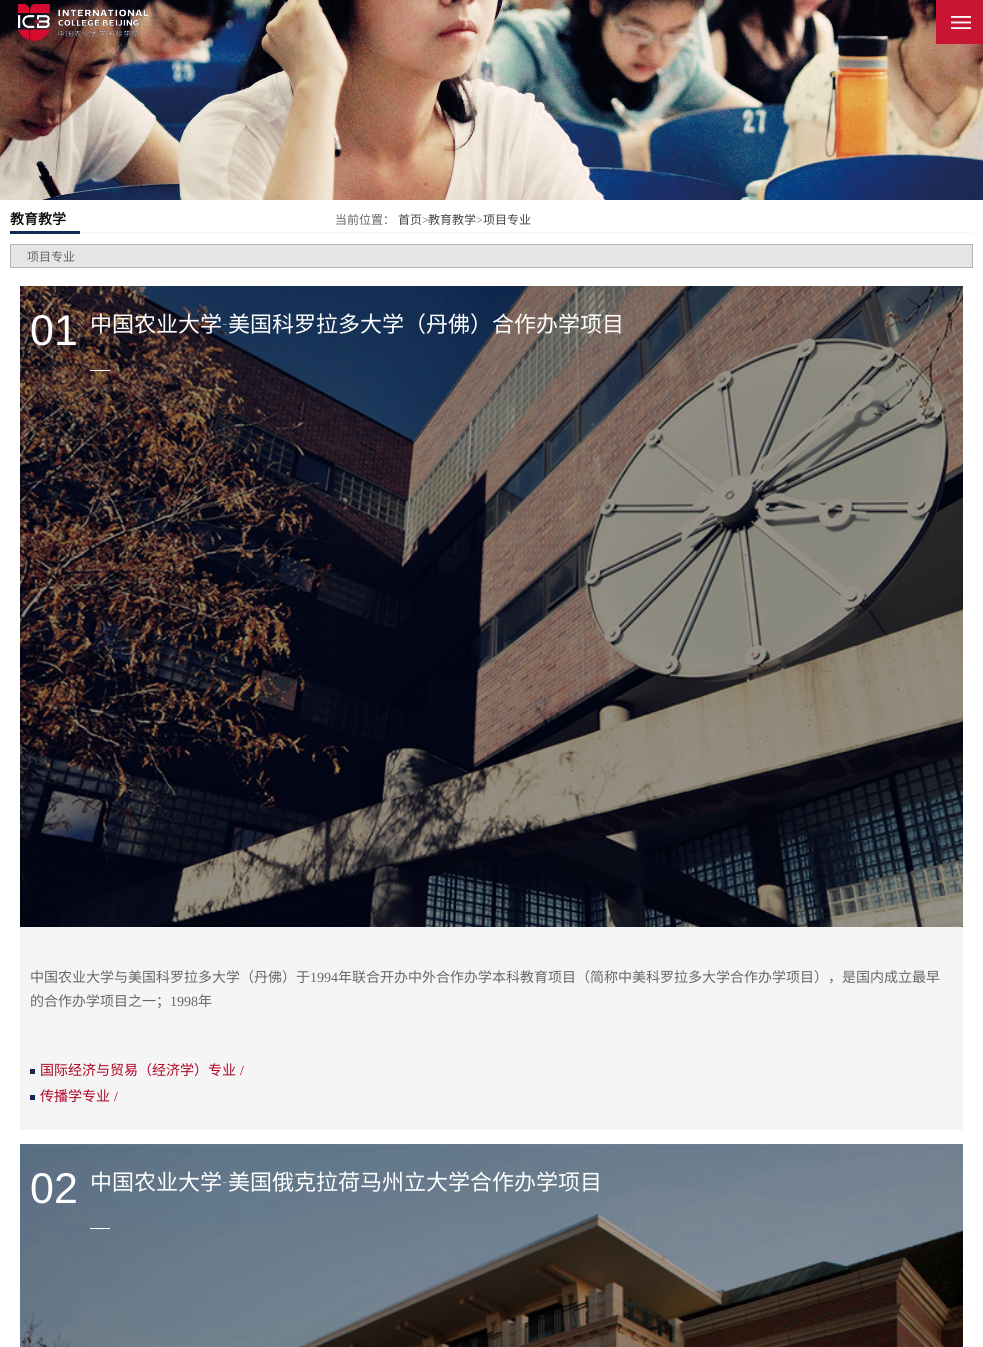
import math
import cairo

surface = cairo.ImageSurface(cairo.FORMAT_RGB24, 983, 1347)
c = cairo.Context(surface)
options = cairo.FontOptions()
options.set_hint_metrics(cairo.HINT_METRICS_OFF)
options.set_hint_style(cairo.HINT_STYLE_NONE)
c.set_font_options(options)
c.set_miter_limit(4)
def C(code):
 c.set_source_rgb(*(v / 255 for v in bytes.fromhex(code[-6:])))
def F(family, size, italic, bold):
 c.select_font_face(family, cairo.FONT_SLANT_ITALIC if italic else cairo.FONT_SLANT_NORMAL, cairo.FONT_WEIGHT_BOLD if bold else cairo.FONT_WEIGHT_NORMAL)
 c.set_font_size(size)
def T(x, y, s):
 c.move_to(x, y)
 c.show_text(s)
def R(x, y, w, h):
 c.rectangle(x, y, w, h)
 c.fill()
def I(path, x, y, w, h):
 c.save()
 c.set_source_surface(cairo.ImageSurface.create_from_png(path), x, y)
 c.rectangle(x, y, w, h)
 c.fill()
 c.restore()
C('ffffff')
c.paint()
I('1.png',0,0,983,200)
I('2.png',18,4,130,37)
I('3.png',936,0,47,44)
C('f5f5f5')
R(80,232,893,1)
F('Noto Sans CJK SC',14,0,1)
C('0b0b0b')
T(10,224,'教育教学')
F('Noto Sans CJK SC',12,0,0)
C('666666')
T(335,224,'当前位置：')
C('444444')
T(398,224,'首页')
F('Liberation Serif',12,0,0)
C('666666')
T(422,224,'>')
F('Noto Sans CJK SC',12,0,0)
C('444444')
T(428,224,'教育教学')
F('Liberation Serif',12,0,0)
C('666666')
T(476,224,'>')
F('Noto Sans CJK SC',12,0,0)
C('444444')
T(483,224,'项目专业')
C('112953')
R(10,231,70,3)
C('e5e5e5')
c.rectangle(10.5,244.5,962,23)
c.fill_preserve()
C('b4b4b4')
c.set_line_width(1)
c.stroke()
C('666666')
T(27,261,'项目专业')
C('f5f5f5')
R(20,927,943,203)
I('4.png',20,286,943,641)
F('Liberation Sans',43,0,0)
C('ffffff')
T(30,345,'01')
F('Noto Sans CJK SC',22,0,0)
T(90,332,'中国农业大学')
F('Bebas Neue Light',22,0,0)
T(222,332,'-')
F('Noto Sans CJK SC',22,0,0)
T(228,332,'美国科罗拉多大学（丹佛）合作办学项目')
R(90,370,20,1)
F('Noto Sans CJK SC',14,0,0)
C('666666')
T(30,982,'中国农业大学与美国科罗拉多大学（丹佛）于')
F('Liberation Serif',14,0,0)
T(310,982,'1994')
F('Noto Sans CJK SC',14,0,0)
T(338,982,'年联合开办中外合作办学本科教育项目（简称中美科罗拉多大学合作办学项目），是国内成立最早')
T(30,1006,'的合作办学项目之一；')
F('Liberation Serif',14,0,0)
T(170,1006,'1998')
F('Noto Sans CJK SC',14,0,0)
T(198,1006,'年')
C('112953')
R(30,1069,5,5)
C('af0525')
T(40,1075,'国际经济与贸易（经济学）专业')
F('Liberation Serif',14,0,0)
T(240,1075,'/')
C('112953')
R(30,1095,5,5)
F('Noto Sans CJK SC',14,0,0)
C('af0525')
T(40,1101,'传播学专业')
F('Liberation Serif',14,0,0)
T(114,1101,'/')
I('5.png',20,1144,943,203)
F('Liberation Sans',43,0,0)
C('ffffff')
T(30,1203,'02')
F('Noto Sans CJK SC',22,0,0)
T(90,1190,'中国农业大学')
F('Bebas Neue Light',22,0,0)
T(222,1190,'-')
F('Noto Sans CJK SC',22,0,0)
T(228,1190,'美国俄克拉荷马州立大学合作办学项目')
R(90,1228,20,1)
surface.write_to_png('o.png')
